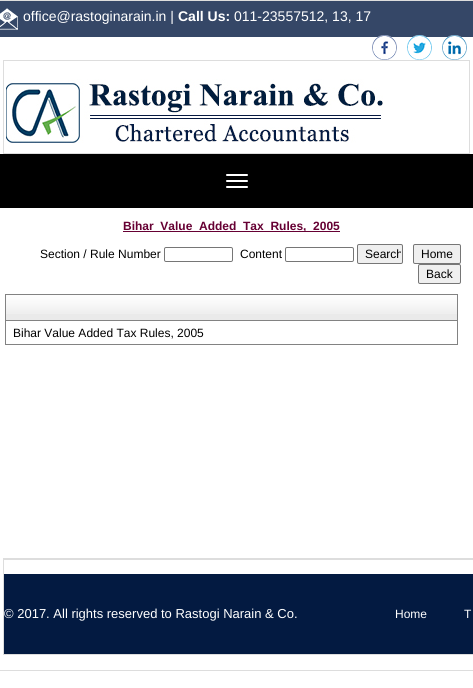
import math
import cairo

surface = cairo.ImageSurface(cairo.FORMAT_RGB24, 473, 688)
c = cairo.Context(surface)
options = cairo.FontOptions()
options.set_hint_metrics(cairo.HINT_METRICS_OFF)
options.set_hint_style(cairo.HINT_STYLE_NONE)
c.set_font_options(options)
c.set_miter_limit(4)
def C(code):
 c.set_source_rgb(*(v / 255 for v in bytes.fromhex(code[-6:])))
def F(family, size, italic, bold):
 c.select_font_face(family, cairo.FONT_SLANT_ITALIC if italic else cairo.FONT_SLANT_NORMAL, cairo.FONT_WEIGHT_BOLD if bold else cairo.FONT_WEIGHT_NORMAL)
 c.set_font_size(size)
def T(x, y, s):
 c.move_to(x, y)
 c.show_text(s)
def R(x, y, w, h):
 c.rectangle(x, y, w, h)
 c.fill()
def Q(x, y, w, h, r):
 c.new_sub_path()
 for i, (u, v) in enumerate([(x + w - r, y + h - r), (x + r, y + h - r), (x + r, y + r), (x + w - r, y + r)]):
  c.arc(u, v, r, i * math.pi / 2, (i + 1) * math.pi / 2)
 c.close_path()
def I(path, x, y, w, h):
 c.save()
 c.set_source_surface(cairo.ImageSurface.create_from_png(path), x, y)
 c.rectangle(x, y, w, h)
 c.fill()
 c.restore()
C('ffffff')
c.paint()
c.rectangle(-.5,.5,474,670)
C('dddddd')
c.set_line_width(1)
c.stroke()
C('354767')
R(0,1,473,36)
I('1.png',0,8,18,22)
F('Liberation Sans',14,0,0)
C('ffffff')
T(23,21,'office@rastoginarain.in |')
F('Liberation Sans',14,0,1)
T(178,21,'Call Us:')
F('Liberation Sans',14,0,0)
T(234,21,'011-23557512, 13, 17')
I('2.png',372,35,25,25)
I('3.png',407,35,25,25)
I('4.png',442,35,25,25)
C('dddddd')
R(3,60,467,1)
R(469,60,1,94)
R(3,153,467,1)
R(3,60,1,94)
I('5.png',6,79,377,64)
C('000000')
R(0,154,473,54)
C('ffffff')
Q(226,174,22,2,1)
c.fill()
Q(226,180,22,2,1)
c.fill()
Q(226,186,22,2,1)
c.fill()
C('660033')
R(123,231,217,1)
F('Liberation Sans',12,0,1)
T(123,230,'Bihar_Value_Added_Tax_Rules,_2005')
F('Liberation Sans',12,0,0)
C('000000')
T(40,258,'Section / Rule Number')
Q(164.5,247.5,68,14,1.5)
C('767676')
c.stroke()
C('000000')
T(240,258,'Content')
Q(285.5,247.5,68,14,1.5)
C('767676')
c.stroke()
C('efefef')
Q(357.5,244.5,45,19,1.5)
c.fill_preserve()
C('767676')
c.stroke()
c.save()
c.rectangle(359,246,42,16)
c.clip()
C('000000')
T(365,258,'Search')
c.restore()
C('efefef')
Q(413.5,244.5,47,19,1.5)
c.fill_preserve()
C('767676')
c.stroke()
C('000000')
T(421,258,'Home')
C('efefef')
Q(418.5,264.5,42,19,1.5)
c.fill_preserve()
C('767676')
c.stroke()
C('000000')
T(426,278,'Back')
c.rectangle(5.5,294.5,452,50)
C('828282')
c.stroke()
C('eaeaea')
R(6,314,451,6)
I('6.png',6,295,451,19)
C('828282')
R(6,320,451,1)
C('000000')
T(13,337,'Bihar Value Added Tax Rules, 2005')
C('dddddd')
R(3,558,470,1)
R(3,654,470,1)
R(3,558,1,97)
R(4,559,469,1)
C('031a41')
R(4,574,469,80)
F('Liberation Sans',13,0,0)
C('ffffff')
T(4,618,'© 2017. All rights reserved to Rastogi Narain & Co.')
F('Liberation Sans',12,0,0)
T(395,618,'Home')
T(464,618,'T')
surface.write_to_png('o.png')
